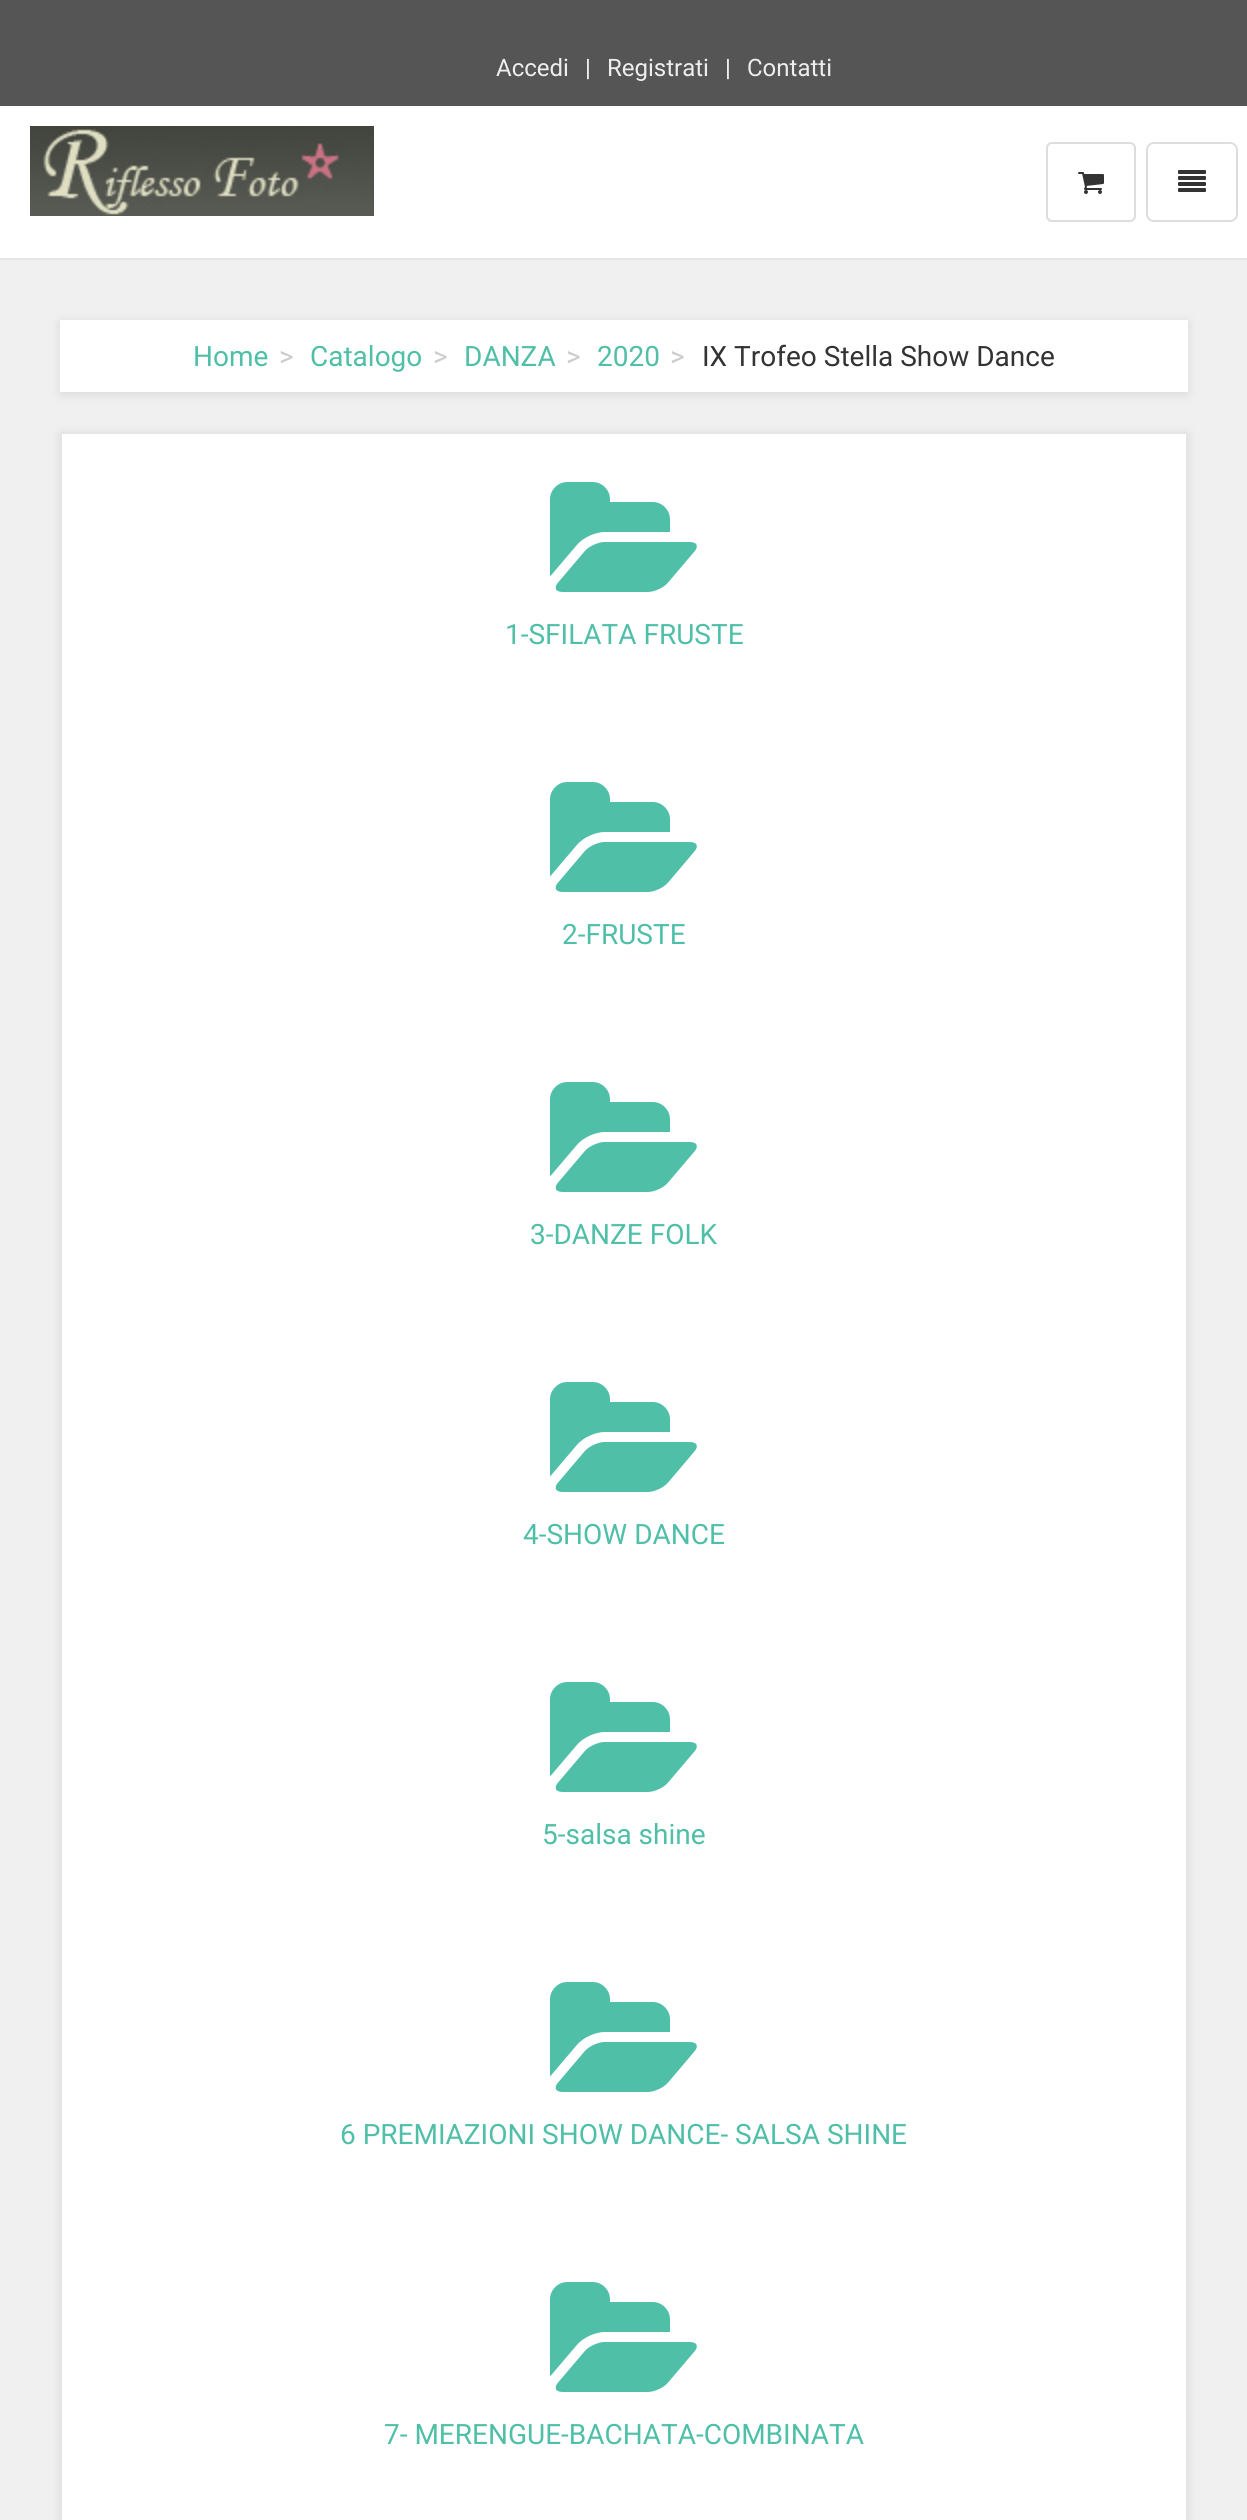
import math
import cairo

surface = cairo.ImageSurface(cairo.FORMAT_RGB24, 1247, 2520)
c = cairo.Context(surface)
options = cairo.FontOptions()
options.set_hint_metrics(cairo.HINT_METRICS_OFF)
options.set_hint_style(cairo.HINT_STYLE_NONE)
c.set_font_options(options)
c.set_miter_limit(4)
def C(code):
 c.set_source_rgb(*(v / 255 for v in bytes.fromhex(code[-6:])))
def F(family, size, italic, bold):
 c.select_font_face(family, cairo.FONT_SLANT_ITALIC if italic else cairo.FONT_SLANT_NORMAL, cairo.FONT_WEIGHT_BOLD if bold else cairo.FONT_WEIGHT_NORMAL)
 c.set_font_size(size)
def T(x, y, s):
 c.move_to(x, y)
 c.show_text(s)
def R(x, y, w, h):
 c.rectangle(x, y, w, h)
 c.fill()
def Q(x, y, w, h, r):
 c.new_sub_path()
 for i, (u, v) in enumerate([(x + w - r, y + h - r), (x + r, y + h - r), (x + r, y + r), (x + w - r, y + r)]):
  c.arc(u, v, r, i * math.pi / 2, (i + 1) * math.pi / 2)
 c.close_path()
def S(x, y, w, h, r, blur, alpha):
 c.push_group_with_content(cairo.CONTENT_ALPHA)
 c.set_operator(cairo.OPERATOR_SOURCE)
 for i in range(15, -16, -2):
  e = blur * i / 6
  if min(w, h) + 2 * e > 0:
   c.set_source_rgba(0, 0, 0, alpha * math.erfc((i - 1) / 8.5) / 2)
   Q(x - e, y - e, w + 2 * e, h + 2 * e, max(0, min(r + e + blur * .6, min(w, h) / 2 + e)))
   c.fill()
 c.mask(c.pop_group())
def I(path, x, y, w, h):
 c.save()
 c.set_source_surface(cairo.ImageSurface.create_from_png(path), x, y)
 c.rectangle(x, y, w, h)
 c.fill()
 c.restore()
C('f0f0f0')
c.paint()
C('555555')
R(0,0,1247,106)
F('Roboto',24,0,0)
C('eeeeee')
T(496,76,'Accedi')
C('f7f7f7')
T(585,76,'|')
C('eeeeee')
T(607,76,'Registrati')
C('f7f7f7')
T(725,76,'|')
C('eeeeee')
T(747,76,'Contatti')
C('ffffff')
R(0,106,1247,152)
C('e6e6e6')
R(0,258,1247,2)
I('1.png',30,126,344,90)
Q(1047,143,88,78,5)
C('dddddd')
c.stroke()
I('2.png',1078,172,26,22)
Q(1147,143,90,78,7)
c.stroke()
I('3.png',1178,170,28,22)
C('000000')
S(60,322,1128,72,0,5,.1)
C('ffffff')
R(60,320,1128,72)
F('Roboto',28,0,0)
C('4fbfa8')
T(193,366,'Home')
C('cccccc')
T(279,366,'>')
C('4fbfa8')
T(310,366,'Catalogo')
C('cccccc')
T(433,366,'>')
C('4fbfa8')
T(464,366,'DANZA')
C('cccccc')
T(566,366,'>')
C('4fbfa8')
T(597,366,'2020')
C('cccccc')
T(670,366,'>')
C('333333')
T(702,366,'IX Trofeo Stella Show Dance')
C('000000')
S(60,434,1128,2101,0,5,.1)
C('ffffff')
c.rectangle(61,433,1126,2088)
c.fill_preserve()
C('e6e6e6')
c.stroke()
I('4.png',550,482,147,110)
C('4fbfa8')
T(505,644,'1-SFILATA FRUSTE')
I('4.png',550,782,147,110)
T(562,944,'2-FRUSTE')
I('4.png',550,1082,147,110)
T(530,1244,'3-DANZE FOLK')
I('4.png',550,1382,147,110)
T(523,1544,'4-SHOW DANCE')
I('4.png',550,1682,147,110)
T(542,1844,'5-salsa shine')
I('4.png',550,1982,147,110)
T(340,2144,'6 PREMIAZIONI SHOW DANCE- SALSA SHINE')
I('4.png',550,2282,147,110)
T(384,2444,'7- MERENGUE-BACHATA-COMBINATA')
surface.write_to_png('o.png')
